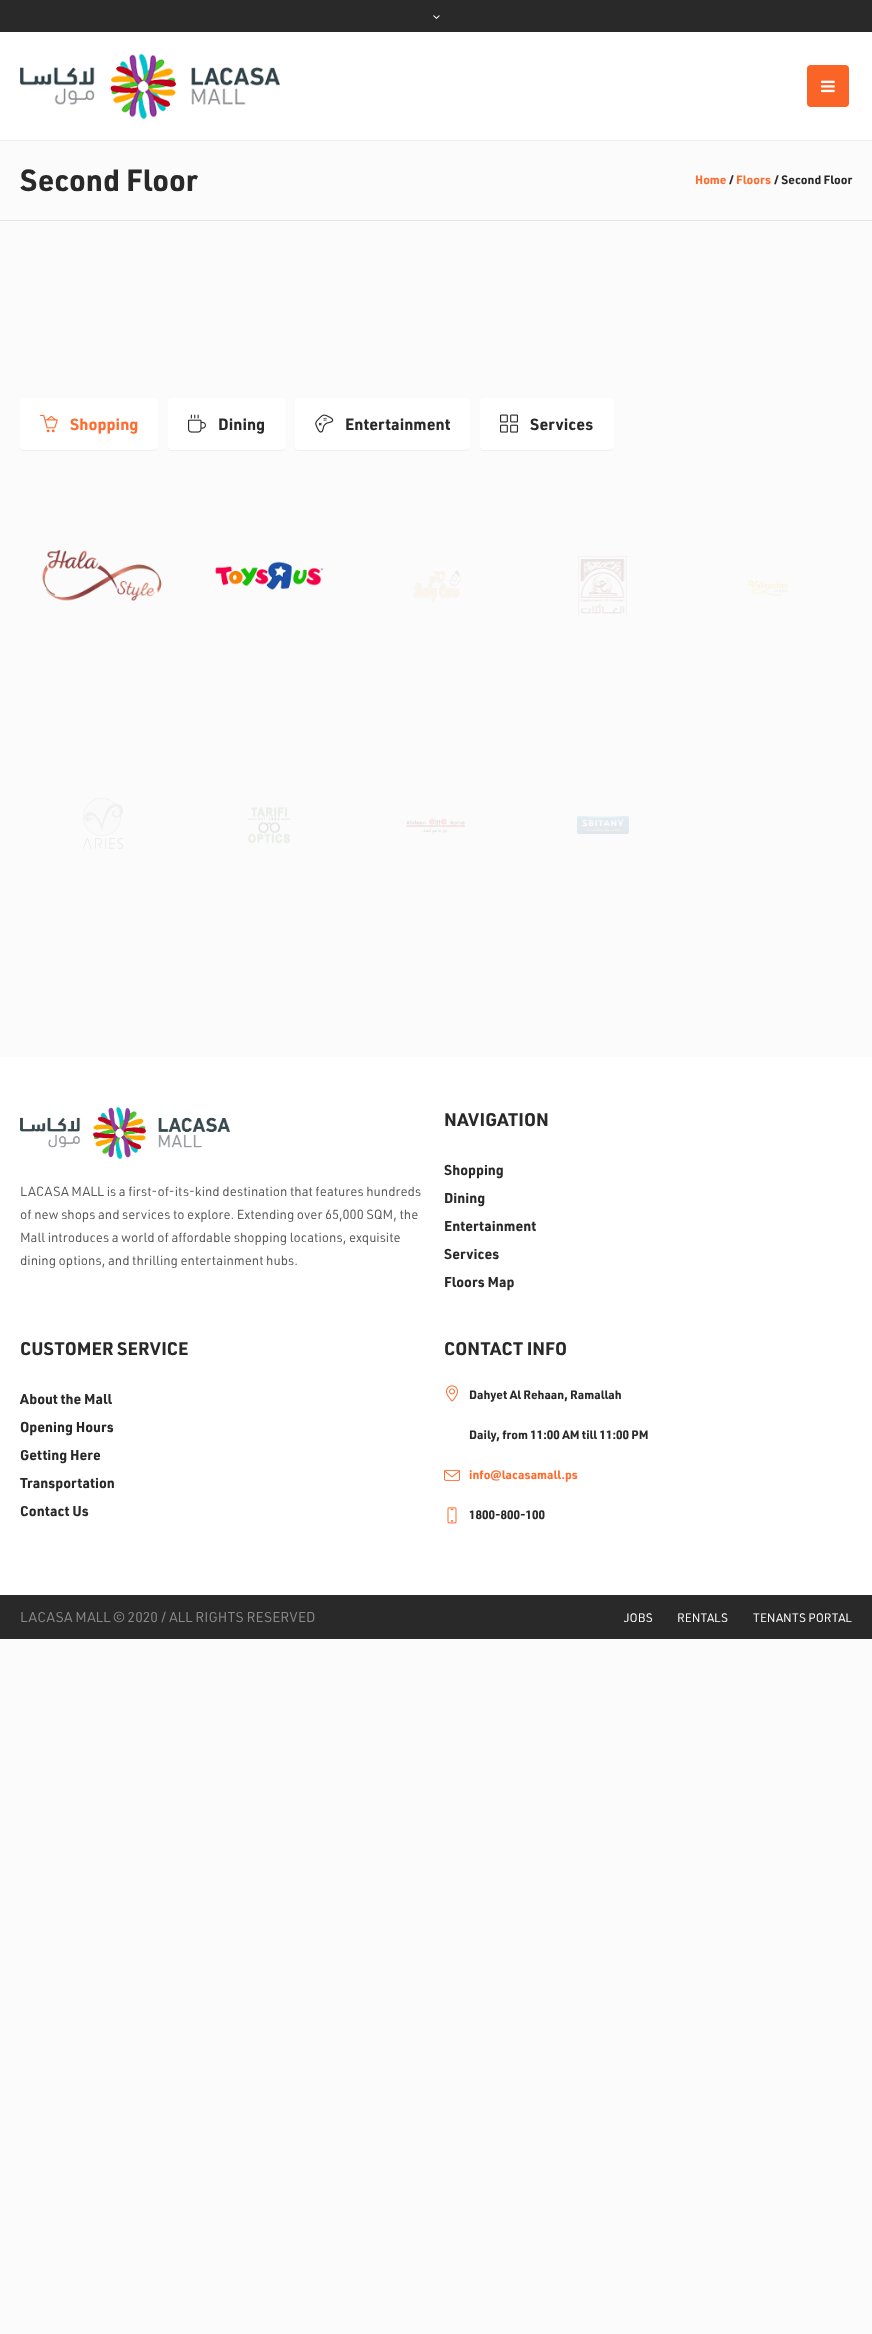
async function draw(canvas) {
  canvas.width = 872
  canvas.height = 2334
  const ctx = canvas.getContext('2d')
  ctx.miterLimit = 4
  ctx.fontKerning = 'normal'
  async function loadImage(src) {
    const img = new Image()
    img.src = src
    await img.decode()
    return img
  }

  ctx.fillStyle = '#fbfbfb'
  ctx.fillRect(0, 0, 872, 2334)
  ctx.fillStyle = '#0000000d'
  ctx.filter = 'blur(0.5px)'
  ctx.beginPath()
  ctx.rect(0, 1, 872, 140)
  ctx.fill()
  ctx.filter = 'none'
  ctx.fillStyle = '#292929'
  ctx.fillRect(0, 0, 872, 32)
  ctx.drawImage(await loadImage('image0.png'), 433, 15, 7, 4)
  ctx.fillStyle = '#fff'
  ctx.fillRect(0, 32, 872, 108)
  ctx.drawImage(await loadImage('image1.png'), 20, 54, 260, 65)
  ctx.fillStyle = '#fa6426'
  ctx.beginPath()
  ctx.roundRect(807, 65, 42, 42, 4)
  ctx.fill()
  ctx.drawImage(await loadImage('image2.png'), 821, 80, 14, 13)
  ctx.fillStyle = '#fefefe'
  ctx.fillRect(0, 221, 872, 1)
  ctx.fillStyle = '#e4e4e4'
  ctx.fillRect(0, 220, 872, 1)
  ctx.font = 'bold 30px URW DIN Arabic'
  ctx.fillStyle = '#292929'
  ctx.fillText('Second Floor', 20, 191)
  ctx.font = 'bold 12px URW DIN Arabic'
  ctx.fillStyle = '#ff6c2f'
  ctx.fillText('Home', 695, 184)
  ctx.fillStyle = '#292929'
  ctx.fillText('/', 729, 184)
  ctx.fillStyle = '#ff6c2f'
  ctx.fillText('Floors', 736, 184)
  ctx.fillStyle = '#292929'
  ctx.fillText('/ Second Floor', 774, 184)
  ctx.fillStyle = '#0000000d'
  ctx.filter = 'blur(0.5px)'
  ctx.beginPath()
  ctx.roundRect(20, 399, 138, 52, 4)
  ctx.fill()
  ctx.filter = 'none'
  ctx.fillStyle = '#fff'
  ctx.beginPath()
  ctx.roundRect(20, 398, 138, 52, 4)
  ctx.fill()
  ctx.drawImage(await loadImage('image3.png'), 40, 414, 18, 19)
  ctx.font = 'bold 16px URW DIN Arabic'
  ctx.fillStyle = '#ff6c2f'
  ctx.fillText('Shopping', 70, 430)
  ctx.fillStyle = '#0000000d'
  ctx.filter = 'blur(0.5px)'
  ctx.beginPath()
  ctx.roundRect(168, 399, 117, 52, 4)
  ctx.fill()
  ctx.filter = 'none'
  ctx.fillStyle = '#fff'
  ctx.beginPath()
  ctx.roundRect(168, 398, 117, 52, 4)
  ctx.fill()
  ctx.drawImage(await loadImage('image4.png'), 188, 414, 18, 19)
  ctx.fillStyle = '#292929'
  ctx.fillText('Dining', 218, 430)
  ctx.fillStyle = '#0000000d'
  ctx.filter = 'blur(0.5px)'
  ctx.beginPath()
  ctx.roundRect(295, 399, 175, 52, 4)
  ctx.fill()
  ctx.filter = 'none'
  ctx.fillStyle = '#fff'
  ctx.beginPath()
  ctx.roundRect(295, 398, 175, 52, 4)
  ctx.fill()
  ctx.drawImage(await loadImage('image5.png'), 315, 414, 19, 19)
  ctx.fillStyle = '#292929'
  ctx.fillText('Entertainment', 345, 430)
  ctx.fillStyle = '#0000000d'
  ctx.filter = 'blur(0.5px)'
  ctx.beginPath()
  ctx.roundRect(480, 399, 134, 52, 4)
  ctx.fill()
  ctx.filter = 'none'
  ctx.fillStyle = '#fff'
  ctx.beginPath()
  ctx.roundRect(480, 398, 134, 52, 4)
  ctx.fill()
  ctx.drawImage(await loadImage('image6.png'), 500, 414, 18, 19)
  ctx.fillStyle = '#292929'
  ctx.fillText('Services', 530, 430)
  ctx.drawImage(await loadImage('image7.png'), 42, 550, 120, 51)
  ctx.drawImage(await loadImage('image8.png'), 215, 561, 109, 29)
  ctx.drawImage(await loadImage('image9.png'), 413, 570, 48, 32)
  ctx.drawImage(await loadImage('image10.png'), 578, 556, 49, 60)
  ctx.drawImage(await loadImage('image11.png'), 748, 580, 40, 16)
  ctx.drawImage(await loadImage('image12.png'), 83, 798, 40, 51)
  ctx.drawImage(await loadImage('image13.png'), 248, 807, 42, 37)
  ctx.drawImage(await loadImage('image14.png'), 406, 818, 59, 15)
  ctx.drawImage(await loadImage('image15.png'), 577, 816, 52, 18)
  ctx.fillStyle = '#fff'
  ctx.fillRect(0, 1057, 872, 538)
  ctx.drawImage(await loadImage('image16.png'), 20, 1107, 210, 52)
  ctx.font = '13px URW DIN Arabic'
  ctx.fillStyle = '#595959'
  ctx.fillText('LACASA MALL is a first-of-its-kind destination that features hundreds', 20, 1196)
  ctx.fillText('of new shops and services to explore. Extending over 65,000 SQM, the', 20, 1219)
  ctx.fillText('Mall introduces a world of affordable shopping locations, exquisite', 20, 1242)
  ctx.fillText('dining options, and thrilling entertainment hubs.', 20, 1265)
  ctx.font = 'bold 18px URW DIN Arabic'
  ctx.fillStyle = '#292929'
  ctx.fillText('NAVIGATION', 444, 1126)
  ctx.font = 'bold 14px URW DIN Arabic'
  ctx.fillText('Shopping', 444, 1175)
  ctx.fillText('Dining', 444, 1203)
  ctx.fillText('Entertainment', 444, 1231)
  ctx.fillText('Services', 444, 1259)
  ctx.fillText('Floors Map', 444, 1287)
  ctx.font = 'bold 18px URW DIN Arabic'
  ctx.fillText('CUSTOMER SERVICE', 20, 1355)
  ctx.font = 'bold 14px URW DIN Arabic'
  ctx.fillText('About the Mall', 20, 1404)
  ctx.fillText('Opening Hours', 20, 1432)
  ctx.fillText('Getting Here', 20, 1460)
  ctx.fillText('Transportation', 20, 1488)
  ctx.fillText('Contact Us', 20, 1516)
  ctx.font = 'bold 18px URW DIN Arabic'
  ctx.fillText('CONTACT INFO', 444, 1355)
  ctx.drawImage(await loadImage('image17.png'), 446, 1385, 12, 17)
  ctx.font = 'bold 12px URW DIN Arabic'
  ctx.fillText('Dahyet Al Rehaan, Ramallah', 469, 1399)
  ctx.fillText('Daily, from 11:00 AM till 11:00 PM', 469, 1439)
  ctx.drawImage(await loadImage('image18.png'), 444, 1469, 16, 12)
  ctx.fillStyle = '#ff6c2f'
  ctx.fillText('info@lacasamall.ps', 469, 1479)
  ctx.drawImage(await loadImage('image19.png'), 447, 1507, 10, 17)
  ctx.fillStyle = '#292929'
  ctx.fillText('1800-800-100', 469, 1519)
  ctx.fillRect(0, 1595, 872, 44)
  ctx.font = '14px URW DIN Arabic'
  ctx.fillStyle = '#898989'
  ctx.fillText('LACASA MALL © 2020 / ALL RIGHTS RESERVED', 20, 1622)
  ctx.font = '12px URW DIN Arabic'
  ctx.fillStyle = '#fff'
  ctx.fillText('JOBS', 624, 1622)
  ctx.fillText('RENTALS', 677, 1622)
  ctx.fillText('TENANTS PORTAL', 753, 1622)
}

draw(document.querySelector('canvas'))
